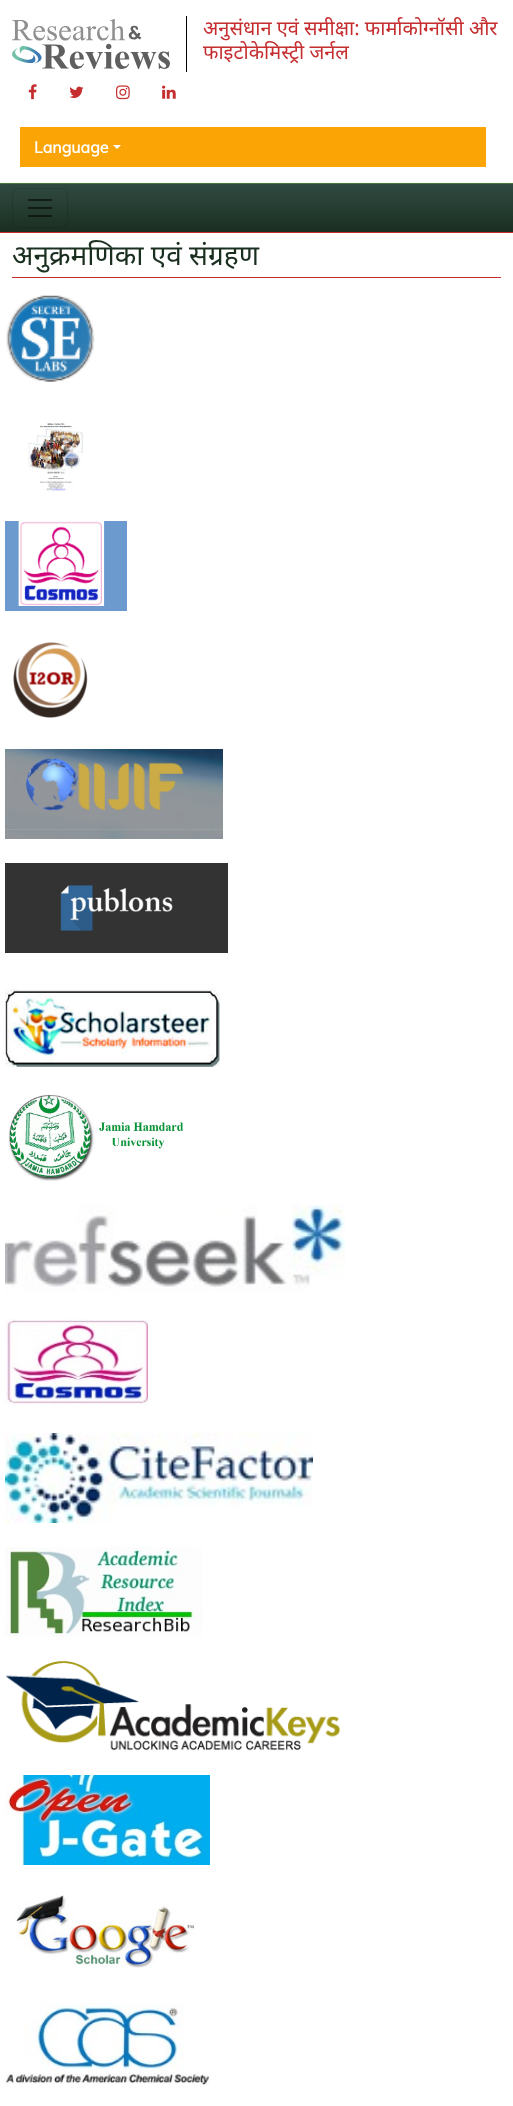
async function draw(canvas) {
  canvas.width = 513
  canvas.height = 2106
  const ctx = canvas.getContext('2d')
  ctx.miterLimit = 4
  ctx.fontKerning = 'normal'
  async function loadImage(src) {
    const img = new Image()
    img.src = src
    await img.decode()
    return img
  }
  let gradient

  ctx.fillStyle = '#fff'
  ctx.fillRect(0, 0, 513, 2106)
  ctx.drawImage(await loadImage('image0.png'), 12, 19, 158, 50)
  ctx.fillStyle = '#000'
  ctx.fillRect(186, 16, 1, 56)
  ctx.font = '20px Noto Sans'
  ctx.fillStyle = '#c52d2f'
  ctx.fillText('अनुसंधान एवं समीक्षा: फार्माकोग्नॉसी और', 203, 35)
  ctx.fillText('फाइटोकेमिस्ट्री जर्नल', 203, 59)
  ctx.drawImage(await loadImage('image1.png'), 28, 84, 9, 16)
  ctx.drawImage(await loadImage('image2.png'), 69, 86, 15, 12)
  ctx.drawImage(await loadImage('image3.png'), 116, 85, 14, 15)
  ctx.drawImage(await loadImage('image4.png'), 162, 85, 14, 14)
  ctx.fillStyle = '#fba405'
  ctx.fillRect(20, 127, 466, 40)
  ctx.font = 'bold 16px Muli'
  ctx.fillStyle = '#fff'
  ctx.fillText('Language', 34, 153)
  ctx.beginPath()
  ctx.moveTo(113, 145)
  ctx.lineTo(121, 145)
  ctx.lineTo(117, 149)
  ctx.closePath()
  ctx.fill()
  gradient = ctx.createLinearGradient(257, 184, 257, 232)
  gradient.addColorStop(0, '#304a42')
  gradient.addColorStop(1, '#1a2f20')
  ctx.fillStyle = gradient
  ctx.fillRect(0, 184, 513, 48)
  ctx.fillStyle = '#467837'
  ctx.fillRect(0, 183, 513, 1)
  ctx.fillStyle = '#c52d2f'
  ctx.fillRect(0, 232, 513, 1)
  ctx.beginPath()
  ctx.roundRect(12.5, 188.5, 55, 39, 5.5)
  ctx.strokeStyle = '#0000001a'
  ctx.stroke()
  ctx.drawImage(await loadImage('image5.png'), 28, 199, 24, 18)
  ctx.fillRect(12, 277, 489, 1)
  ctx.font = '28px Noto Sans'
  ctx.fillStyle = '#1a2f20'
  ctx.fillText('अनुक्रमणिका एवं संग्रहण', 12, 265)
  ctx.drawImage(await loadImage('image6.png'), 6, 295, 89, 87)
  ctx.drawImage(await loadImage('image7.png'), 28, 423, 55, 68)
  ctx.drawImage(await loadImage('image8.png'), 5, 521, 122, 90)
  ctx.drawImage(await loadImage('image9.png'), 13, 642, 75, 76)
  ctx.drawImage(await loadImage('image10.png'), 5, 749, 218, 90)
  ctx.drawImage(await loadImage('image11.png'), 5, 863, 223, 90)
  ctx.drawImage(await loadImage('image12.png'), 5, 988, 215, 79)
  ctx.drawImage(await loadImage('image13.png'), 8, 1094, 176, 87)
  ctx.drawImage(await loadImage('image14.png'), 5, 1205, 340, 87)
  ctx.drawImage(await loadImage('image15.png'), 5, 1319, 143, 86)
  ctx.drawImage(await loadImage('image16.png'), 5, 1433, 308, 90)
  ctx.drawImage(await loadImage('image17.png'), 5, 1547, 198, 90)
  ctx.drawImage(await loadImage('image18.png'), 6, 1661, 335, 90)
  ctx.drawImage(await loadImage('image19.png'), 5, 1775, 205, 90)
  ctx.drawImage(await loadImage('image20.png'), 15, 1895, 180, 73)
  ctx.drawImage(await loadImage('image21.png'), 6, 2003, 204, 82)
}

draw(document.querySelector('canvas'))
